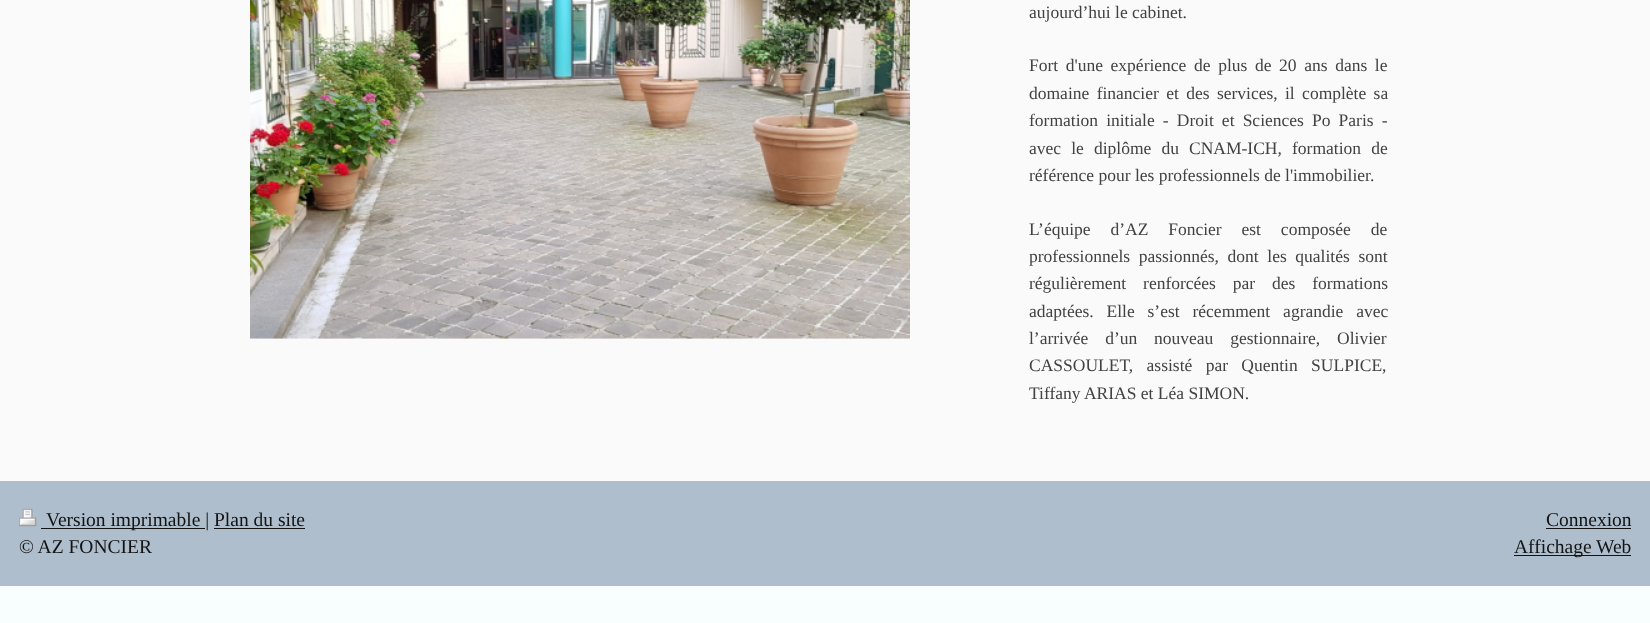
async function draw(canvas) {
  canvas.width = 1650
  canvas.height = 623
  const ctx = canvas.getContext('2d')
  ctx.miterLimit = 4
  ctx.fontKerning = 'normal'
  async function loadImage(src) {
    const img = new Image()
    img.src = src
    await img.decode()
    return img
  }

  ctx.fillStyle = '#f8fdfe'
  ctx.fillRect(0, 0, 1650, 623)
  ctx.fillStyle = '#fafafb'
  ctx.fillRect(0, 0, 1650, 481)
  ctx.drawImage(await loadImage('image0.png'), 250, 0, 660, 339)
  ctx.font = '17.5px Liberation Serif'
  ctx.fillStyle = '#424242'
  ctx.fillText('aujourd’hui le cabinet.', 1029, 18)
  ctx.wordSpacing = '3.25px'
  ctx.fillText('Fort d\'une expérience de plus de 20 ans dans le', 1029, 71)
  ctx.wordSpacing = '3px'
  ctx.fillText('domaine financier et des services, il complète sa', 1029, 99)
  ctx.wordSpacing = '3.75px'
  ctx.fillText('formation initiale - Droit et Sciences Po Paris -', 1029, 126)
  ctx.wordSpacing = '5.75px'
  ctx.fillText('avec le diplôme du CNAM-ICH, formation de', 1029, 154)
  ctx.wordSpacing = '0px'
  ctx.fillText('référence pour les professionnels de l\'immobilier.', 1029, 181)
  ctx.wordSpacing = '15.5px'
  ctx.fillText('L’équipe d’AZ Foncier est composée de', 1029, 235)
  ctx.wordSpacing = '4.25px'
  ctx.fillText('professionnels passionnés, dont les qualités sont', 1029, 262)
  ctx.wordSpacing = '12.5px'
  ctx.fillText('régulièrement renforcées par des formations', 1029, 289)
  ctx.wordSpacing = '8.5px'
  ctx.fillText('adaptées. Elle s’est récemment agrandie avec', 1029, 317)
  ctx.wordSpacing = '12.5px'
  ctx.fillText('l’arrivée d’un nouveau gestionnaire, Olivier', 1029, 344)
  ctx.wordSpacing = '9px'
  ctx.fillText('CASSOULET, assisté par Quentin SULPICE,', 1029, 371)
  ctx.wordSpacing = '0px'
  ctx.fillText('Tiffany ARIAS et Léa SIMON.', 1029, 399)
  ctx.fillStyle = '#afbecc'
  ctx.fillRect(0, 481, 1650, 105)
  ctx.drawImage(await loadImage('image1.png'), 19, 508, 18, 19)
  ctx.fillStyle = '#121314'
  ctx.fillRect(41, 528, 164, 1)
  ctx.font = '19.5px Liberation Serif'
  ctx.fillText('Version imprimable | Plan du site', 46, 526)
  ctx.fillRect(214, 528, 91, 1)
  ctx.fillText('© AZ FONCIER', 19, 553)
  ctx.fillText('Connexion', 1546, 526)
  ctx.fillRect(1546, 528, 85, 1)
  ctx.fillRect(1514, 555, 117, 1)
  ctx.fillText('Affichage Web', 1514, 553)
}

draw(document.querySelector('canvas'))
